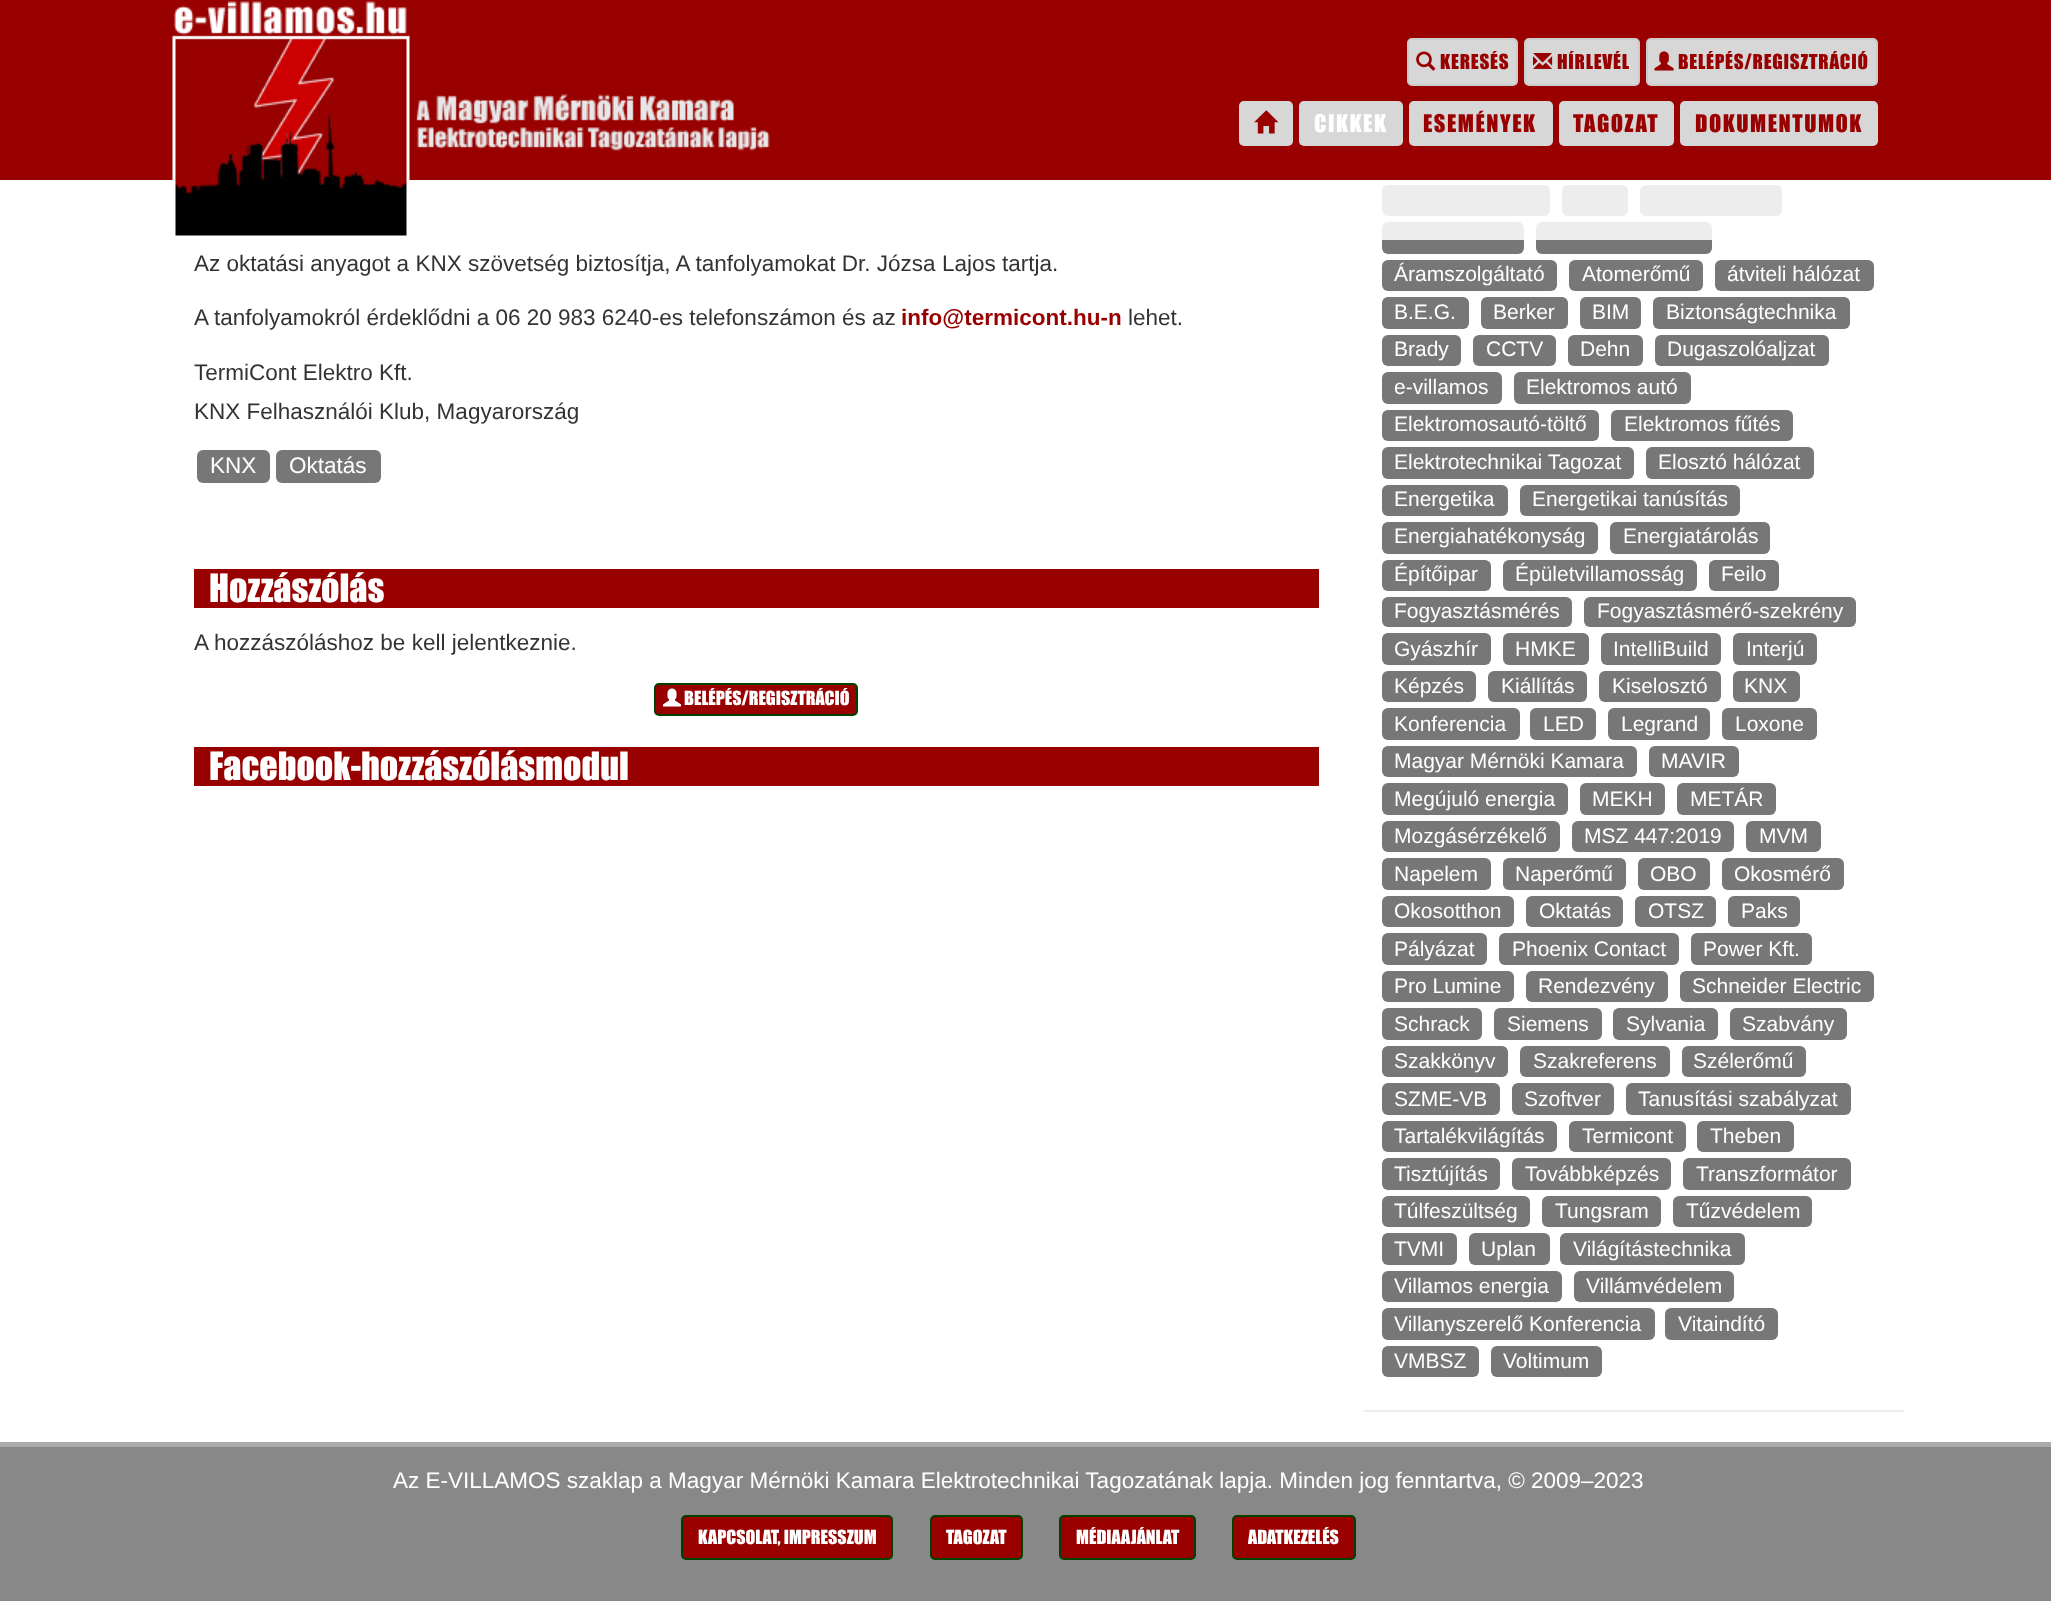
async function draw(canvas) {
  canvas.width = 2051
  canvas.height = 1601
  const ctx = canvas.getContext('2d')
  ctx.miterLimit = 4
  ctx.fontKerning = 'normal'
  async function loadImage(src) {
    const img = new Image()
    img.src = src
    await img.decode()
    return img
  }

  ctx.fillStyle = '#fff'
  ctx.fillRect(0, 0, 2051, 1601)
  ctx.fillStyle = '#777'
  ctx.beginPath()
  ctx.roundRect(1382, 185, 168, 31, 6)
  ctx.fill()
  ctx.beginPath()
  ctx.roundRect(1562, 185, 66, 31, 6)
  ctx.fill()
  ctx.beginPath()
  ctx.roundRect(1640, 185, 142, 31, 6)
  ctx.fill()
  ctx.beginPath()
  ctx.roundRect(1382, 222, 142, 32, 6)
  ctx.fill()
  ctx.beginPath()
  ctx.roundRect(1536, 222, 176, 32, 6)
  ctx.fill()
  ctx.fillStyle = '#ffffffde'
  ctx.fillRect(1382, 185, 400, 55)
  ctx.fillStyle = '#990100'
  ctx.fillRect(0, 0, 2051, 180)
  ctx.drawImage(await loadImage('image0.png'), 172, 1, 598, 235)
  ctx.fillStyle = '#d7d7d7'
  ctx.beginPath()
  ctx.roundRect(1408, 39, 109, 46, 4)
  ctx.fill()
  ctx.strokeStyle = '#ccc'
  ctx.lineWidth = 2
  ctx.stroke()
  ctx.drawImage(await loadImage('image1.png'), 1416, 51, 20, 20)
  ctx.letterSpacing = '0.75px'
  ctx.font = '19.1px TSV'
  ctx.fillStyle = '#990100'
  ctx.fillText('KERESÉS', 1440, 69)
  ctx.fillStyle = '#d7d7d7'
  ctx.beginPath()
  ctx.roundRect(1525, 39, 114, 46, 4)
  ctx.fill()
  ctx.stroke()
  ctx.drawImage(await loadImage('image2.png'), 1533, 53, 20, 16)
  ctx.fillStyle = '#990100'
  ctx.fillText('HÍRLEVÉL', 1557, 69)
  ctx.fillStyle = '#d7d7d7'
  ctx.beginPath()
  ctx.roundRect(1647, 39, 230, 46, 4)
  ctx.fill()
  ctx.stroke()
  ctx.drawImage(await loadImage('image3.png'), 1654, 51, 20, 20)
  ctx.fillStyle = '#990100'
  ctx.fillText('BELÉPÉS/REGISZTRÁCIÓ', 1678, 69)
  ctx.fillStyle = '#d7d7d7'
  ctx.beginPath()
  ctx.roundRect(1239, 101, 54, 45, 5)
  ctx.fill()
  ctx.drawImage(await loadImage('image4.png'), 1254, 110, 25, 24)
  ctx.beginPath()
  ctx.roundRect(1299, 101, 104, 45, 5)
  ctx.fill()
  ctx.letterSpacing = '1.5px'
  ctx.font = '22.5px TSV'
  ctx.fillStyle = '#fff'
  ctx.fillText('CIKKEK', 1314, 132)
  ctx.fillStyle = '#d7d7d7'
  ctx.beginPath()
  ctx.roundRect(1409, 101, 144, 45, 5)
  ctx.fill()
  ctx.fillStyle = '#990100'
  ctx.fillText('ESEMÉNYEK', 1423, 132)
  ctx.fillStyle = '#d7d7d7'
  ctx.beginPath()
  ctx.roundRect(1559, 101, 115, 45, 5)
  ctx.fill()
  ctx.fillStyle = '#990100'
  ctx.fillText('TAGOZAT', 1573, 132)
  ctx.fillStyle = '#d7d7d7'
  ctx.beginPath()
  ctx.roundRect(1680, 101, 198, 45, 5)
  ctx.fill()
  ctx.fillStyle = '#990100'
  ctx.fillText('DOKUMENTUMOK', 1695, 132)
  ctx.letterSpacing = '0px'
  ctx.font = '22.5px Liberation Sans'
  ctx.fillStyle = '#333'
  ctx.fillText('Az oktatási anyagot a KNX szövetség biztosítja, A tanfolyamokat Dr. Józsa Lajos tartja.', 194, 271)
  ctx.fillText('A tanfolyamokról érdeklődni a 06 20 983 6240-es telefonszámon és az', 194, 325)
  ctx.font = 'bold 22.5px Liberation Sans'
  ctx.fillStyle = '#990100'
  ctx.fillText('info@termicont.hu-n', 901, 325)
  ctx.font = '22.5px Liberation Sans'
  ctx.fillStyle = '#333'
  ctx.fillText('lehet.', 1128, 325)
  ctx.fillText('TermiCont Elektro Kft.', 194, 380)
  ctx.fillText('KNX Felhasználói Klub, Magyarország', 194, 419)
  ctx.fillStyle = '#777'
  ctx.beginPath()
  ctx.roundRect(197, 450, 73, 33, 6)
  ctx.fill()
  ctx.fillStyle = '#fff'
  ctx.fillText('KNX', 210, 473)
  ctx.fillStyle = '#777'
  ctx.beginPath()
  ctx.roundRect(276, 450, 105, 33, 6)
  ctx.fill()
  ctx.fillStyle = '#fff'
  ctx.fillText('Oktatás', 289, 473)
  ctx.fillStyle = '#990100'
  ctx.fillRect(194, 569, 1125, 39)
  ctx.font = '36px TSV'
  ctx.fillStyle = '#fff'
  ctx.fillText('Hozzászólás', 209, 602)
  ctx.font = '22.5px Liberation Sans'
  ctx.fillStyle = '#333'
  ctx.fillText('A hozzászóláshoz be kell jelentkeznie.', 194, 650)
  ctx.fillStyle = '#990100'
  ctx.beginPath()
  ctx.roundRect(655, 684, 202, 31, 4)
  ctx.fill()
  ctx.strokeStyle = '#014100'
  ctx.stroke()
  ctx.drawImage(await loadImage('image5.png'), 663, 688, 18, 19)
  ctx.font = '18px TSV'
  ctx.fillStyle = '#fff'
  ctx.fillText('BELÉPÉS/REGISZTRÁCIÓ', 684, 705)
  ctx.fillStyle = '#990100'
  ctx.fillRect(194, 747, 1125, 39)
  ctx.font = '36px TSV'
  ctx.fillStyle = '#fff'
  ctx.fillText('Facebook-hozzászólásmodul', 209, 780)
  ctx.fillStyle = '#777'
  ctx.beginPath()
  ctx.roundRect(1382, 260, 175, 31, 6)
  ctx.fill()
  ctx.font = '21px Liberation Sans'
  ctx.fillStyle = '#fff'
  ctx.fillText('Áramszolgáltató', 1394, 281)
  ctx.fillStyle = '#777'
  ctx.beginPath()
  ctx.roundRect(1569, 260, 134, 31, 6)
  ctx.fill()
  ctx.fillStyle = '#fff'
  ctx.fillText('Atomerőmű', 1582, 281)
  ctx.fillStyle = '#777'
  ctx.beginPath()
  ctx.roundRect(1715, 260, 159, 31, 6)
  ctx.fill()
  ctx.fillStyle = '#fff'
  ctx.fillText('átviteli hálózat', 1727, 281)
  ctx.fillStyle = '#777'
  ctx.beginPath()
  ctx.roundRect(1382, 297, 87, 32, 6)
  ctx.fill()
  ctx.fillStyle = '#fff'
  ctx.fillText('B.E.G.', 1394, 319)
  ctx.fillStyle = '#777'
  ctx.beginPath()
  ctx.roundRect(1481, 297, 87, 32, 6)
  ctx.fill()
  ctx.fillStyle = '#fff'
  ctx.fillText('Berker', 1493, 319)
  ctx.fillStyle = '#777'
  ctx.beginPath()
  ctx.roundRect(1580, 297, 61, 32, 6)
  ctx.fill()
  ctx.fillStyle = '#fff'
  ctx.fillText('BIM', 1592, 319)
  ctx.fillStyle = '#777'
  ctx.beginPath()
  ctx.roundRect(1653, 297, 197, 32, 6)
  ctx.fill()
  ctx.fillStyle = '#fff'
  ctx.fillText('Biztonságtechnika', 1666, 319)
  ctx.fillStyle = '#777'
  ctx.beginPath()
  ctx.roundRect(1382, 335, 79, 31, 6)
  ctx.fill()
  ctx.fillStyle = '#fff'
  ctx.fillText('Brady', 1394, 356)
  ctx.fillStyle = '#777'
  ctx.beginPath()
  ctx.roundRect(1473, 335, 83, 31, 6)
  ctx.fill()
  ctx.fillStyle = '#fff'
  ctx.fillText('CCTV', 1486, 356)
  ctx.fillStyle = '#777'
  ctx.beginPath()
  ctx.roundRect(1568, 335, 75, 31, 6)
  ctx.fill()
  ctx.fillStyle = '#fff'
  ctx.fillText('Dehn', 1580, 356)
  ctx.fillStyle = '#777'
  ctx.beginPath()
  ctx.roundRect(1655, 335, 174, 31, 6)
  ctx.fill()
  ctx.fillStyle = '#fff'
  ctx.fillText('Dugaszolóaljzat', 1667, 356)
  ctx.fillStyle = '#777'
  ctx.beginPath()
  ctx.roundRect(1382, 372, 120, 32, 6)
  ctx.fill()
  ctx.fillStyle = '#fff'
  ctx.fillText('e-villamos', 1394, 394)
  ctx.fillStyle = '#777'
  ctx.beginPath()
  ctx.roundRect(1514, 372, 177, 32, 6)
  ctx.fill()
  ctx.fillStyle = '#fff'
  ctx.fillText('Elektromos autó', 1526, 394)
  ctx.fillStyle = '#777'
  ctx.beginPath()
  ctx.roundRect(1382, 410, 217, 31, 6)
  ctx.fill()
  ctx.fillStyle = '#fff'
  ctx.fillText('Elektromosautó-töltő', 1394, 431)
  ctx.fillStyle = '#777'
  ctx.beginPath()
  ctx.roundRect(1611, 410, 182, 31, 6)
  ctx.fill()
  ctx.fillStyle = '#fff'
  ctx.fillText('Elektromos fűtés', 1624, 431)
  ctx.fillStyle = '#777'
  ctx.beginPath()
  ctx.roundRect(1382, 447, 252, 32, 6)
  ctx.fill()
  ctx.fillStyle = '#fff'
  ctx.fillText('Elektrotechnikai Tagozat', 1394, 469)
  ctx.fillStyle = '#777'
  ctx.beginPath()
  ctx.roundRect(1646, 447, 168, 32, 6)
  ctx.fill()
  ctx.fillStyle = '#fff'
  ctx.fillText('Elosztó hálózat', 1658, 469)
  ctx.fillStyle = '#777'
  ctx.beginPath()
  ctx.roundRect(1382, 485, 126, 31, 6)
  ctx.fill()
  ctx.fillStyle = '#fff'
  ctx.fillText('Energetika', 1394, 506)
  ctx.fillStyle = '#777'
  ctx.beginPath()
  ctx.roundRect(1520, 485, 220, 31, 6)
  ctx.fill()
  ctx.fillStyle = '#fff'
  ctx.fillText('Energetikai tanúsítás', 1532, 506)
  ctx.fillStyle = '#777'
  ctx.beginPath()
  ctx.roundRect(1382, 522, 216, 32, 6)
  ctx.fill()
  ctx.fillStyle = '#fff'
  ctx.fillText('Energiahatékonyság', 1394, 543)
  ctx.fillStyle = '#777'
  ctx.beginPath()
  ctx.roundRect(1610, 522, 160, 32, 6)
  ctx.fill()
  ctx.fillStyle = '#fff'
  ctx.fillText('Energiatárolás', 1623, 543)
  ctx.fillStyle = '#777'
  ctx.beginPath()
  ctx.roundRect(1382, 560, 109, 31, 6)
  ctx.fill()
  ctx.fillStyle = '#fff'
  ctx.fillText('Építőipar', 1394, 581)
  ctx.fillStyle = '#777'
  ctx.beginPath()
  ctx.roundRect(1503, 560, 194, 31, 6)
  ctx.fill()
  ctx.fillStyle = '#fff'
  ctx.fillText('Épületvillamosság', 1515, 581)
  ctx.fillStyle = '#777'
  ctx.beginPath()
  ctx.roundRect(1709, 560, 70, 31, 6)
  ctx.fill()
  ctx.fillStyle = '#fff'
  ctx.fillText('Feilo', 1721, 581)
  ctx.fillStyle = '#777'
  ctx.beginPath()
  ctx.roundRect(1382, 597, 190, 30, 6)
  ctx.fill()
  ctx.fillStyle = '#fff'
  ctx.fillText('Fogyasztásmérés', 1394, 618)
  ctx.fillStyle = '#777'
  ctx.beginPath()
  ctx.roundRect(1584, 597, 272, 30, 6)
  ctx.fill()
  ctx.fillStyle = '#fff'
  ctx.fillText('Fogyasztásmérő-szekrény', 1597, 618)
  ctx.fillStyle = '#777'
  ctx.beginPath()
  ctx.roundRect(1382, 633, 109, 32, 6)
  ctx.fill()
  ctx.fillStyle = '#fff'
  ctx.fillText('Gyászhír', 1394, 656)
  ctx.fillStyle = '#777'
  ctx.beginPath()
  ctx.roundRect(1503, 633, 86, 32, 6)
  ctx.fill()
  ctx.fillStyle = '#fff'
  ctx.fillText('HMKE', 1515, 656)
  ctx.fillStyle = '#777'
  ctx.beginPath()
  ctx.roundRect(1601, 633, 120, 32, 6)
  ctx.fill()
  ctx.fillStyle = '#fff'
  ctx.fillText('IntelliBuild', 1613, 656)
  ctx.fillStyle = '#777'
  ctx.beginPath()
  ctx.roundRect(1733, 633, 84, 32, 6)
  ctx.fill()
  ctx.fillStyle = '#fff'
  ctx.fillText('Interjú', 1746, 656)
  ctx.fillStyle = '#777'
  ctx.beginPath()
  ctx.roundRect(1382, 671, 94, 31, 6)
  ctx.fill()
  ctx.fillStyle = '#fff'
  ctx.fillText('Képzés', 1394, 693)
  ctx.fillStyle = '#777'
  ctx.beginPath()
  ctx.roundRect(1488, 671, 99, 31, 6)
  ctx.fill()
  ctx.fillStyle = '#fff'
  ctx.fillText('Kiállítás', 1501, 693)
  ctx.fillStyle = '#777'
  ctx.beginPath()
  ctx.roundRect(1599, 671, 122, 31, 6)
  ctx.fill()
  ctx.fillStyle = '#fff'
  ctx.fillText('Kiselosztó', 1612, 693)
  ctx.fillStyle = '#777'
  ctx.beginPath()
  ctx.roundRect(1733, 671, 67, 31, 6)
  ctx.fill()
  ctx.fillStyle = '#fff'
  ctx.fillText('KNX', 1744, 693)
  ctx.fillStyle = '#777'
  ctx.beginPath()
  ctx.roundRect(1382, 708, 138, 32, 6)
  ctx.fill()
  ctx.fillStyle = '#fff'
  ctx.fillText('Konferencia', 1394, 731)
  ctx.fillStyle = '#777'
  ctx.beginPath()
  ctx.roundRect(1530, 708, 66, 32, 6)
  ctx.fill()
  ctx.fillStyle = '#fff'
  ctx.fillText('LED', 1543, 731)
  ctx.fillStyle = '#777'
  ctx.beginPath()
  ctx.roundRect(1608, 708, 102, 32, 6)
  ctx.fill()
  ctx.fillStyle = '#fff'
  ctx.fillText('Legrand', 1621, 731)
  ctx.fillStyle = '#777'
  ctx.beginPath()
  ctx.roundRect(1722, 708, 95, 32, 6)
  ctx.fill()
  ctx.fillStyle = '#fff'
  ctx.fillText('Loxone', 1735, 731)
  ctx.fillStyle = '#777'
  ctx.beginPath()
  ctx.roundRect(1382, 746, 255, 31, 6)
  ctx.fill()
  ctx.fillStyle = '#fff'
  ctx.fillText('Magyar Mérnöki Kamara', 1394, 768)
  ctx.fillStyle = '#777'
  ctx.beginPath()
  ctx.roundRect(1649, 746, 90, 31, 6)
  ctx.fill()
  ctx.fillStyle = '#fff'
  ctx.fillText('MAVIR', 1661, 768)
  ctx.fillStyle = '#777'
  ctx.beginPath()
  ctx.roundRect(1382, 783, 186, 32, 6)
  ctx.fill()
  ctx.fillStyle = '#fff'
  ctx.fillText('Megújuló energia', 1394, 806)
  ctx.fillStyle = '#777'
  ctx.beginPath()
  ctx.roundRect(1580, 783, 85, 32, 6)
  ctx.fill()
  ctx.fillStyle = '#fff'
  ctx.fillText('MEKH', 1592, 806)
  ctx.fillStyle = '#777'
  ctx.beginPath()
  ctx.roundRect(1677, 783, 99, 32, 6)
  ctx.fill()
  ctx.fillStyle = '#fff'
  ctx.fillText('METÁR', 1690, 806)
  ctx.fillStyle = '#777'
  ctx.beginPath()
  ctx.roundRect(1382, 821, 178, 31, 6)
  ctx.fill()
  ctx.fillStyle = '#fff'
  ctx.fillText('Mozgásérzékelő', 1394, 843)
  ctx.fillStyle = '#777'
  ctx.beginPath()
  ctx.roundRect(1572, 821, 162, 31, 6)
  ctx.fill()
  ctx.fillStyle = '#fff'
  ctx.fillText('MSZ 447:2019', 1584, 843)
  ctx.fillStyle = '#777'
  ctx.beginPath()
  ctx.roundRect(1746, 821, 75, 31, 6)
  ctx.fill()
  ctx.fillStyle = '#fff'
  ctx.fillText('MVM', 1759, 843)
  ctx.fillStyle = '#777'
  ctx.beginPath()
  ctx.roundRect(1382, 858, 109, 32, 6)
  ctx.fill()
  ctx.fillStyle = '#fff'
  ctx.fillText('Napelem', 1394, 881)
  ctx.fillStyle = '#777'
  ctx.beginPath()
  ctx.roundRect(1503, 858, 123, 32, 6)
  ctx.fill()
  ctx.fillStyle = '#fff'
  ctx.fillText('Naperőmű', 1515, 881)
  ctx.fillStyle = '#777'
  ctx.beginPath()
  ctx.roundRect(1638, 858, 72, 32, 6)
  ctx.fill()
  ctx.fillStyle = '#fff'
  ctx.fillText('OBO', 1650, 881)
  ctx.fillStyle = '#777'
  ctx.beginPath()
  ctx.roundRect(1722, 858, 122, 32, 6)
  ctx.fill()
  ctx.fillStyle = '#fff'
  ctx.fillText('Okosmérő', 1734, 881)
  ctx.fillStyle = '#777'
  ctx.beginPath()
  ctx.roundRect(1382, 896, 132, 31, 6)
  ctx.fill()
  ctx.fillStyle = '#fff'
  ctx.fillText('Okosotthon', 1394, 918)
  ctx.fillStyle = '#777'
  ctx.beginPath()
  ctx.roundRect(1526, 896, 97, 31, 6)
  ctx.fill()
  ctx.fillStyle = '#fff'
  ctx.fillText('Oktatás', 1539, 918)
  ctx.fillStyle = '#777'
  ctx.beginPath()
  ctx.roundRect(1635, 896, 81, 31, 6)
  ctx.fill()
  ctx.fillStyle = '#fff'
  ctx.fillText('OTSZ', 1648, 918)
  ctx.fillStyle = '#777'
  ctx.beginPath()
  ctx.roundRect(1728, 896, 72, 31, 6)
  ctx.fill()
  ctx.fillStyle = '#fff'
  ctx.fillText('Paks', 1741, 918)
  ctx.fillStyle = '#777'
  ctx.beginPath()
  ctx.roundRect(1382, 933, 105, 32, 6)
  ctx.fill()
  ctx.fillStyle = '#fff'
  ctx.fillText('Pályázat', 1394, 956)
  ctx.fillStyle = '#777'
  ctx.beginPath()
  ctx.roundRect(1499, 933, 180, 32, 6)
  ctx.fill()
  ctx.fillStyle = '#fff'
  ctx.fillText('Phoenix Contact', 1512, 956)
  ctx.fillStyle = '#777'
  ctx.beginPath()
  ctx.roundRect(1691, 933, 121, 32, 6)
  ctx.fill()
  ctx.fillStyle = '#fff'
  ctx.fillText('Power Kft.', 1703, 956)
  ctx.fillStyle = '#777'
  ctx.beginPath()
  ctx.roundRect(1382, 971, 132, 31, 6)
  ctx.fill()
  ctx.fillStyle = '#fff'
  ctx.fillText('Pro Lumine', 1394, 993)
  ctx.fillStyle = '#777'
  ctx.beginPath()
  ctx.roundRect(1526, 971, 142, 31, 6)
  ctx.fill()
  ctx.fillStyle = '#fff'
  ctx.fillText('Rendezvény', 1538, 993)
  ctx.fillStyle = '#777'
  ctx.beginPath()
  ctx.roundRect(1680, 971, 194, 31, 6)
  ctx.fill()
  ctx.fillStyle = '#fff'
  ctx.fillText('Schneider Electric', 1692, 993)
  ctx.fillStyle = '#777'
  ctx.beginPath()
  ctx.roundRect(1382, 1008, 100, 32, 6)
  ctx.fill()
  ctx.fillStyle = '#fff'
  ctx.fillText('Schrack', 1394, 1031)
  ctx.fillStyle = '#777'
  ctx.beginPath()
  ctx.roundRect(1494, 1008, 108, 32, 6)
  ctx.fill()
  ctx.fillStyle = '#fff'
  ctx.fillText('Siemens', 1507, 1031)
  ctx.fillStyle = '#777'
  ctx.beginPath()
  ctx.roundRect(1613, 1008, 105, 32, 6)
  ctx.fill()
  ctx.fillStyle = '#fff'
  ctx.fillText('Sylvania', 1626, 1031)
  ctx.fillStyle = '#777'
  ctx.beginPath()
  ctx.roundRect(1730, 1008, 117, 32, 6)
  ctx.fill()
  ctx.fillStyle = '#fff'
  ctx.fillText('Szabvány', 1742, 1031)
  ctx.fillStyle = '#777'
  ctx.beginPath()
  ctx.roundRect(1382, 1046, 126, 31, 6)
  ctx.fill()
  ctx.fillStyle = '#fff'
  ctx.fillText('Szakkönyv', 1394, 1068)
  ctx.fillStyle = '#777'
  ctx.beginPath()
  ctx.roundRect(1520, 1046, 150, 31, 6)
  ctx.fill()
  ctx.fillStyle = '#fff'
  ctx.fillText('Szakreferens', 1533, 1068)
  ctx.fillStyle = '#777'
  ctx.beginPath()
  ctx.roundRect(1682, 1046, 124, 31, 6)
  ctx.fill()
  ctx.fillStyle = '#fff'
  ctx.fillText('Szélerőmű', 1693, 1068)
  ctx.fillStyle = '#777'
  ctx.beginPath()
  ctx.roundRect(1382, 1083, 118, 32, 6)
  ctx.fill()
  ctx.fillStyle = '#fff'
  ctx.fillText('SZME-VB', 1394, 1106)
  ctx.fillStyle = '#777'
  ctx.beginPath()
  ctx.roundRect(1512, 1083, 102, 32, 6)
  ctx.fill()
  ctx.fillStyle = '#fff'
  ctx.fillText('Szoftver', 1524, 1106)
  ctx.fillStyle = '#777'
  ctx.beginPath()
  ctx.roundRect(1626, 1083, 225, 32, 6)
  ctx.fill()
  ctx.fillStyle = '#fff'
  ctx.fillText('Tanusítási szabályzat', 1638, 1106)
  ctx.fillStyle = '#777'
  ctx.beginPath()
  ctx.roundRect(1382, 1121, 175, 31, 6)
  ctx.fill()
  ctx.fillStyle = '#fff'
  ctx.fillText('Tartalékvilágítás', 1394, 1143)
  ctx.fillStyle = '#777'
  ctx.beginPath()
  ctx.roundRect(1569, 1121, 117, 31, 6)
  ctx.fill()
  ctx.fillStyle = '#fff'
  ctx.fillText('Termicont', 1582, 1143)
  ctx.fillStyle = '#777'
  ctx.beginPath()
  ctx.roundRect(1697, 1121, 97, 31, 6)
  ctx.fill()
  ctx.fillStyle = '#fff'
  ctx.fillText('Theben', 1710, 1143)
  ctx.fillStyle = '#777'
  ctx.beginPath()
  ctx.roundRect(1382, 1158, 118, 32, 6)
  ctx.fill()
  ctx.fillStyle = '#fff'
  ctx.fillText('Tisztújítás', 1394, 1181)
  ctx.fillStyle = '#777'
  ctx.beginPath()
  ctx.roundRect(1512, 1158, 159, 32, 6)
  ctx.fill()
  ctx.fillStyle = '#fff'
  ctx.fillText('Továbbképzés', 1525, 1181)
  ctx.fillStyle = '#777'
  ctx.beginPath()
  ctx.roundRect(1683, 1158, 168, 32, 6)
  ctx.fill()
  ctx.fillStyle = '#fff'
  ctx.fillText('Transzformátor', 1696, 1181)
  ctx.fillStyle = '#777'
  ctx.beginPath()
  ctx.roundRect(1382, 1196, 148, 31, 6)
  ctx.fill()
  ctx.fillStyle = '#fff'
  ctx.fillText('Túlfeszültség', 1394, 1218)
  ctx.fillStyle = '#777'
  ctx.beginPath()
  ctx.roundRect(1542, 1196, 119, 31, 6)
  ctx.fill()
  ctx.fillStyle = '#fff'
  ctx.fillText('Tungsram', 1555, 1218)
  ctx.fillStyle = '#777'
  ctx.beginPath()
  ctx.roundRect(1673, 1196, 139, 31, 6)
  ctx.fill()
  ctx.fillStyle = '#fff'
  ctx.fillText('Tűzvédelem', 1686, 1218)
  ctx.fillStyle = '#777'
  ctx.beginPath()
  ctx.roundRect(1382, 1233, 75, 32, 6)
  ctx.fill()
  ctx.fillStyle = '#fff'
  ctx.fillText('TVMI', 1394, 1256)
  ctx.fillStyle = '#777'
  ctx.beginPath()
  ctx.roundRect(1469, 1233, 81, 32, 6)
  ctx.fill()
  ctx.fillStyle = '#fff'
  ctx.fillText('Uplan', 1481, 1256)
  ctx.fillStyle = '#777'
  ctx.beginPath()
  ctx.roundRect(1560, 1233, 185, 32, 6)
  ctx.fill()
  ctx.fillStyle = '#fff'
  ctx.fillText('Világítástechnika', 1573, 1256)
  ctx.fillStyle = '#777'
  ctx.beginPath()
  ctx.roundRect(1382, 1271, 180, 31, 6)
  ctx.fill()
  ctx.fillStyle = '#fff'
  ctx.fillText('Villamos energia', 1394, 1293)
  ctx.fillStyle = '#777'
  ctx.beginPath()
  ctx.roundRect(1574, 1271, 160, 31, 6)
  ctx.fill()
  ctx.fillStyle = '#fff'
  ctx.fillText('Villámvédelem', 1586, 1293)
  ctx.fillStyle = '#777'
  ctx.beginPath()
  ctx.roundRect(1382, 1308, 273, 32, 6)
  ctx.fill()
  ctx.fillStyle = '#fff'
  ctx.fillText('Villanyszerelő Konferencia', 1394, 1331)
  ctx.fillStyle = '#777'
  ctx.beginPath()
  ctx.roundRect(1665, 1308, 113, 32, 6)
  ctx.fill()
  ctx.fillStyle = '#fff'
  ctx.fillText('Vitaindító', 1678, 1331)
  ctx.fillStyle = '#777'
  ctx.beginPath()
  ctx.roundRect(1382, 1346, 97, 31, 6)
  ctx.fill()
  ctx.fillStyle = '#fff'
  ctx.fillText('VMBSZ', 1394, 1368)
  ctx.fillStyle = '#777'
  ctx.beginPath()
  ctx.roundRect(1491, 1346, 111, 31, 6)
  ctx.fill()
  ctx.fillStyle = '#fff'
  ctx.fillText('Voltimum', 1503, 1368)
  ctx.fillStyle = '#eee'
  ctx.fillRect(1364, 1410, 540, 2)
  ctx.fillStyle = '#888'
  ctx.fillRect(0, 1447, 2051, 154)
  ctx.fillStyle = '#aaa'
  ctx.fillRect(0, 1442, 2051, 5)
  ctx.font = '22.5px Liberation Sans'
  ctx.fillStyle = '#fff'
  ctx.fillText('Az E-VILLAMOS szaklap a Magyar Mérnöki Kamara Elektrotechnikai Tagozatának lapja. Minden jog fenntartva, © 2009–2023', 393, 1488)
  ctx.fillStyle = '#990100'
  ctx.beginPath()
  ctx.roundRect(682, 1516, 210, 43, 4)
  ctx.fill()
  ctx.stroke()
  ctx.font = '18px TSV'
  ctx.fillStyle = '#fff'
  ctx.fillText('KAPCSOLAT, IMPRESSZUM', 698, 1544)
  ctx.fillStyle = '#990100'
  ctx.beginPath()
  ctx.roundRect(931, 1516, 91, 43, 4)
  ctx.fill()
  ctx.stroke()
  ctx.fillStyle = '#fff'
  ctx.fillText('TAGOZAT', 946, 1544)
  ctx.fillStyle = '#990100'
  ctx.beginPath()
  ctx.roundRect(1060, 1516, 135, 43, 4)
  ctx.fill()
  ctx.stroke()
  ctx.fillStyle = '#fff'
  ctx.fillText('MÉDIAAJÁNLAT', 1076, 1544)
  ctx.fillStyle = '#990100'
  ctx.beginPath()
  ctx.roundRect(1233, 1516, 122, 43, 4)
  ctx.fill()
  ctx.stroke()
  ctx.fillStyle = '#fff'
  ctx.fillText('ADATKEZELÉS', 1248, 1544)
}

draw(document.querySelector('canvas'))
